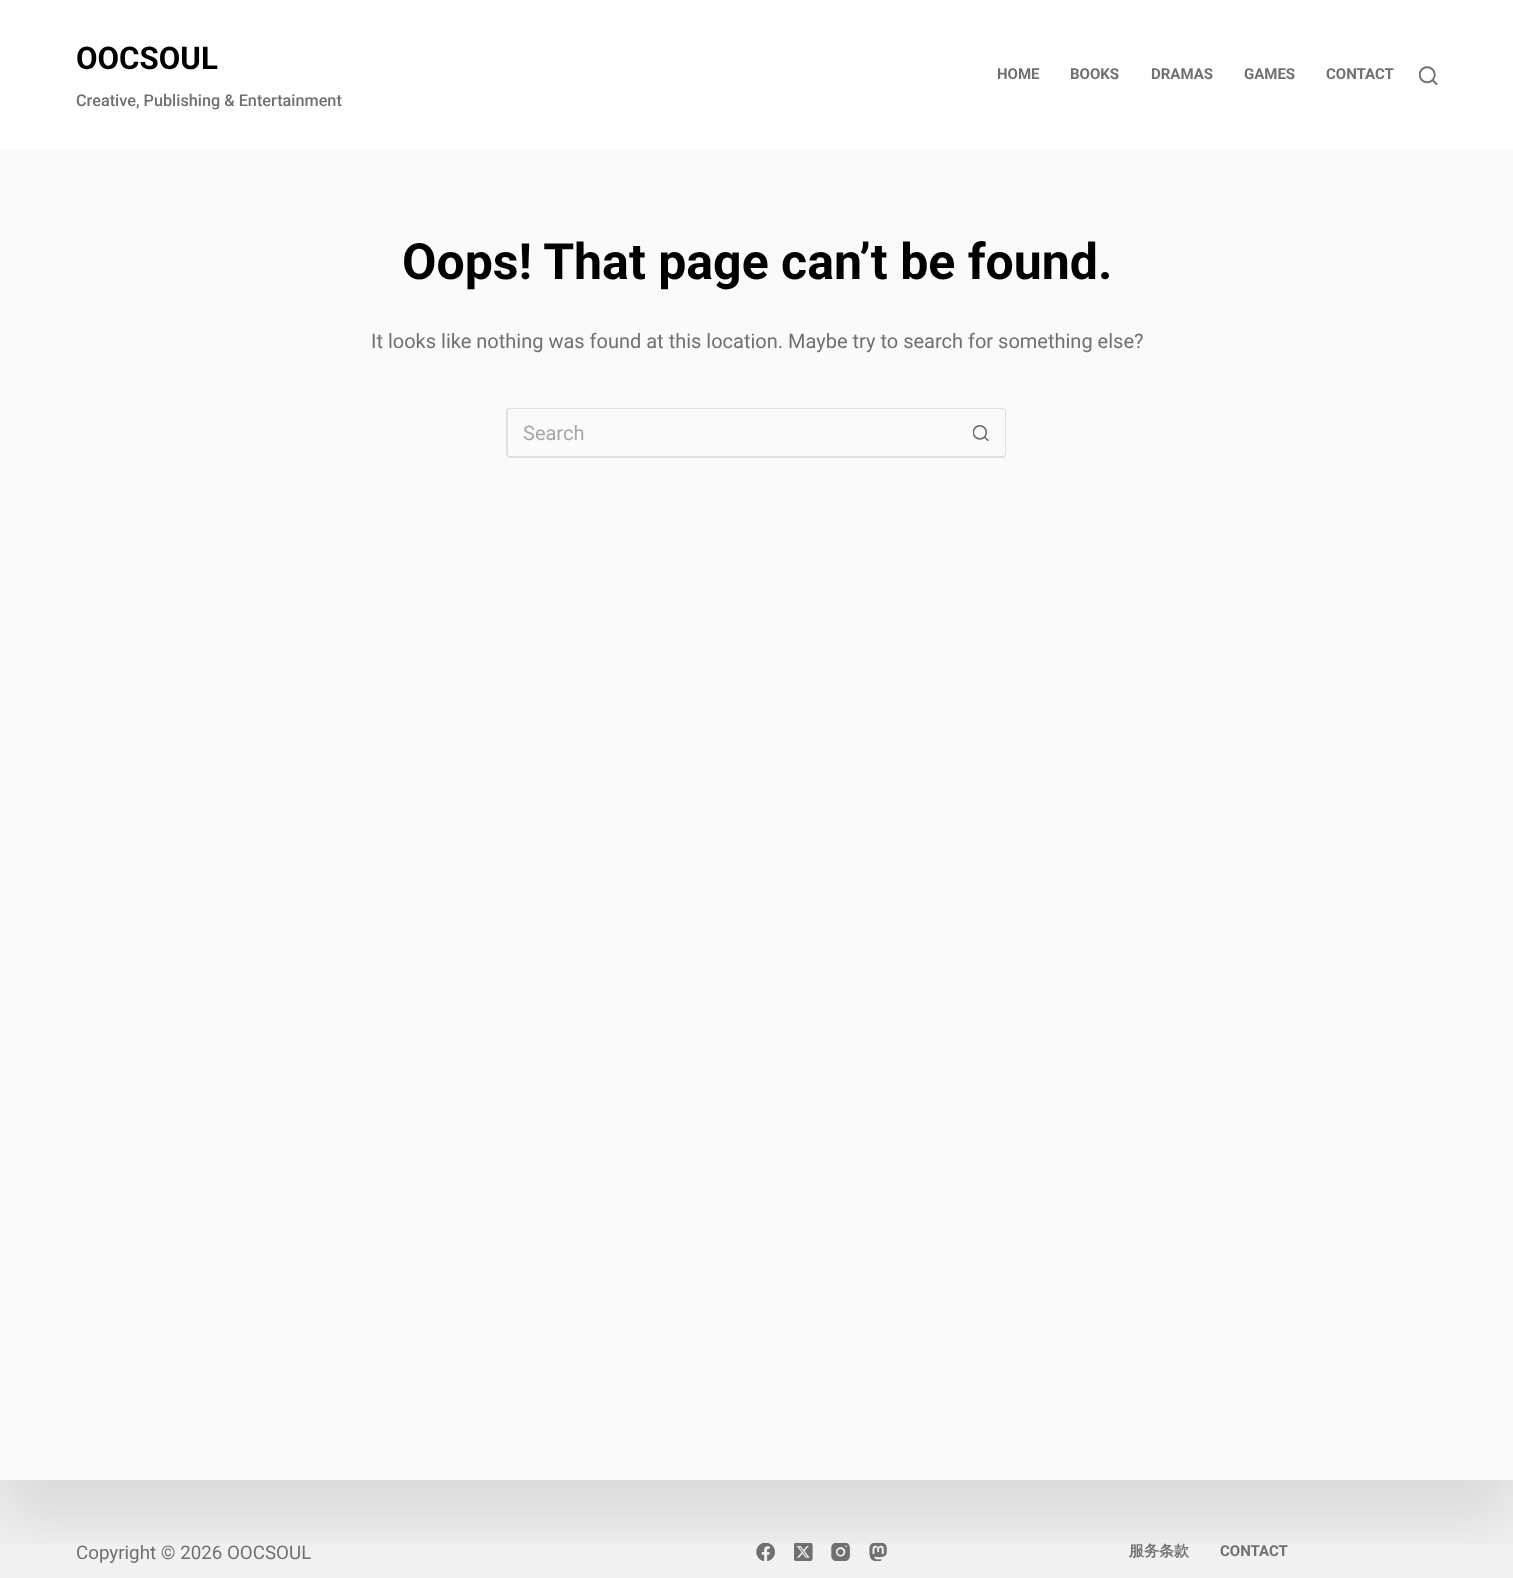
async function draw(canvas) {
  canvas.width = 1513
  canvas.height = 1578
  const ctx = canvas.getContext('2d')
  ctx.miterLimit = 4
  ctx.fontKerning = 'normal'
  async function loadImage(src) {
    const img = new Image()
    img.src = src
    await img.decode()
    return img
  }

  ctx.fillStyle = '#fafafa'
  ctx.fillRect(0, 0, 1513, 1578)
  ctx.fillStyle = '#f1f1f1'
  ctx.fillRect(0, 1480, 1513, 98)
  ctx.drawImage(await loadImage('image2.png'), 756, 1543, 19, 18)
  ctx.drawImage(await loadImage('image3.png'), 794, 1543, 19, 18)
  ctx.drawImage(await loadImage('image4.png'), 831, 1543, 19, 18)
  ctx.drawImage(await loadImage('image5.png'), 869, 1543, 18, 18)
  ctx.save()
  ctx.beginPath()
  ctx.rect(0, 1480, 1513, 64)
  ctx.clip()
  ctx.fillStyle = '#0000001a'
  ctx.filter = 'blur(31px)'
  ctx.beginPath()
  ctx.rect(0, 188, 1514, 1330)
  ctx.fill()
  ctx.filter = 'none'
  ctx.restore()
  ctx.fillStyle = '#fff'
  ctx.fillRect(0, 0, 1513, 150)
  ctx.font = 'bold 31.25px Roboto'
  ctx.fillStyle = '#000'
  ctx.fillText('OOCSOUL', 76, 69)
  ctx.font = '500 16.25px Roboto'
  ctx.fillStyle = '#707070'
  ctx.fillText('Creative, Publishing & Entertainment', 76, 106)
  ctx.font = 'bold 15px Roboto'
  ctx.fillText('HOME', 997, 79)
  ctx.fillText('BOOKS', 1070, 79)
  ctx.fillText('DRAMAS', 1151, 79)
  ctx.fillText('GAMES', 1244, 79)
  ctx.fillText('CONTACT', 1326, 79)
  ctx.drawImage(await loadImage('image0.png'), 1419, 66, 19, 19)
  ctx.font = 'bold 50px Roboto'
  ctx.fillStyle = '#000'
  ctx.fillText('Oops! That page can’t be found.', 402, 279)
  ctx.font = '20px Roboto'
  ctx.fillStyle = '#707070'
  ctx.fillText('It looks like nothing was found at this location. Maybe try to search for something else?', 371, 348)
  ctx.fillStyle = '#e0e0e0'
  ctx.beginPath()
  ctx.moveTo(510, 408)
  ctx.lineTo(956, 408)
  ctx.lineTo(956, 458)
  ctx.lineTo(510, 458)
  ctx.bezierCurveTo(508, 458, 506, 456, 506, 454)
  ctx.lineTo(506, 411)
  ctx.bezierCurveTo(506, 409, 508, 408, 510, 408)
  ctx.closePath()
  ctx.moveTo(510, 409)
  ctx.lineTo(956, 409)
  ctx.lineTo(956, 456)
  ctx.lineTo(510, 456)
  ctx.bezierCurveTo(509, 456, 508, 455, 508, 454)
  ctx.lineTo(508, 411)
  ctx.bezierCurveTo(508, 410, 509, 409, 510, 409)
  ctx.closePath()
  ctx.fill('evenodd')
  ctx.fillStyle = '#a7a7a7'
  ctx.fillText('Search', 523, 440)
  ctx.fillStyle = '#e0e0e0'
  ctx.beginPath()
  ctx.moveTo(956, 408)
  ctx.lineTo(1002, 408)
  ctx.bezierCurveTo(1005, 408, 1006, 409, 1006, 411)
  ctx.lineTo(1006, 454)
  ctx.bezierCurveTo(1006, 456, 1005, 458, 1002, 458)
  ctx.lineTo(956, 458)
  ctx.closePath()
  ctx.moveTo(956, 409)
  ctx.lineTo(1002, 409)
  ctx.bezierCurveTo(1004, 409, 1005, 410, 1005, 411)
  ctx.lineTo(1005, 454)
  ctx.bezierCurveTo(1005, 455, 1004, 456, 1002, 456)
  ctx.lineTo(956, 456)
  ctx.closePath()
  ctx.fill('evenodd')
  ctx.drawImage(await loadImage('image1.png'), 973, 425, 16, 16)
  ctx.font = '18.75px Roboto'
  ctx.fillStyle = '#707070'
  ctx.fillText('Copyright © 2026 OOCSOUL', 76, 1559)
  ctx.font = 'bold 15px WenQuanYi Zen Hei'
  ctx.fillText('服务条款', 1129, 1556)
  ctx.font = 'bold 15px Roboto'
  ctx.fillText('CONTACT', 1220, 1556)
}

draw(document.querySelector('canvas'))
